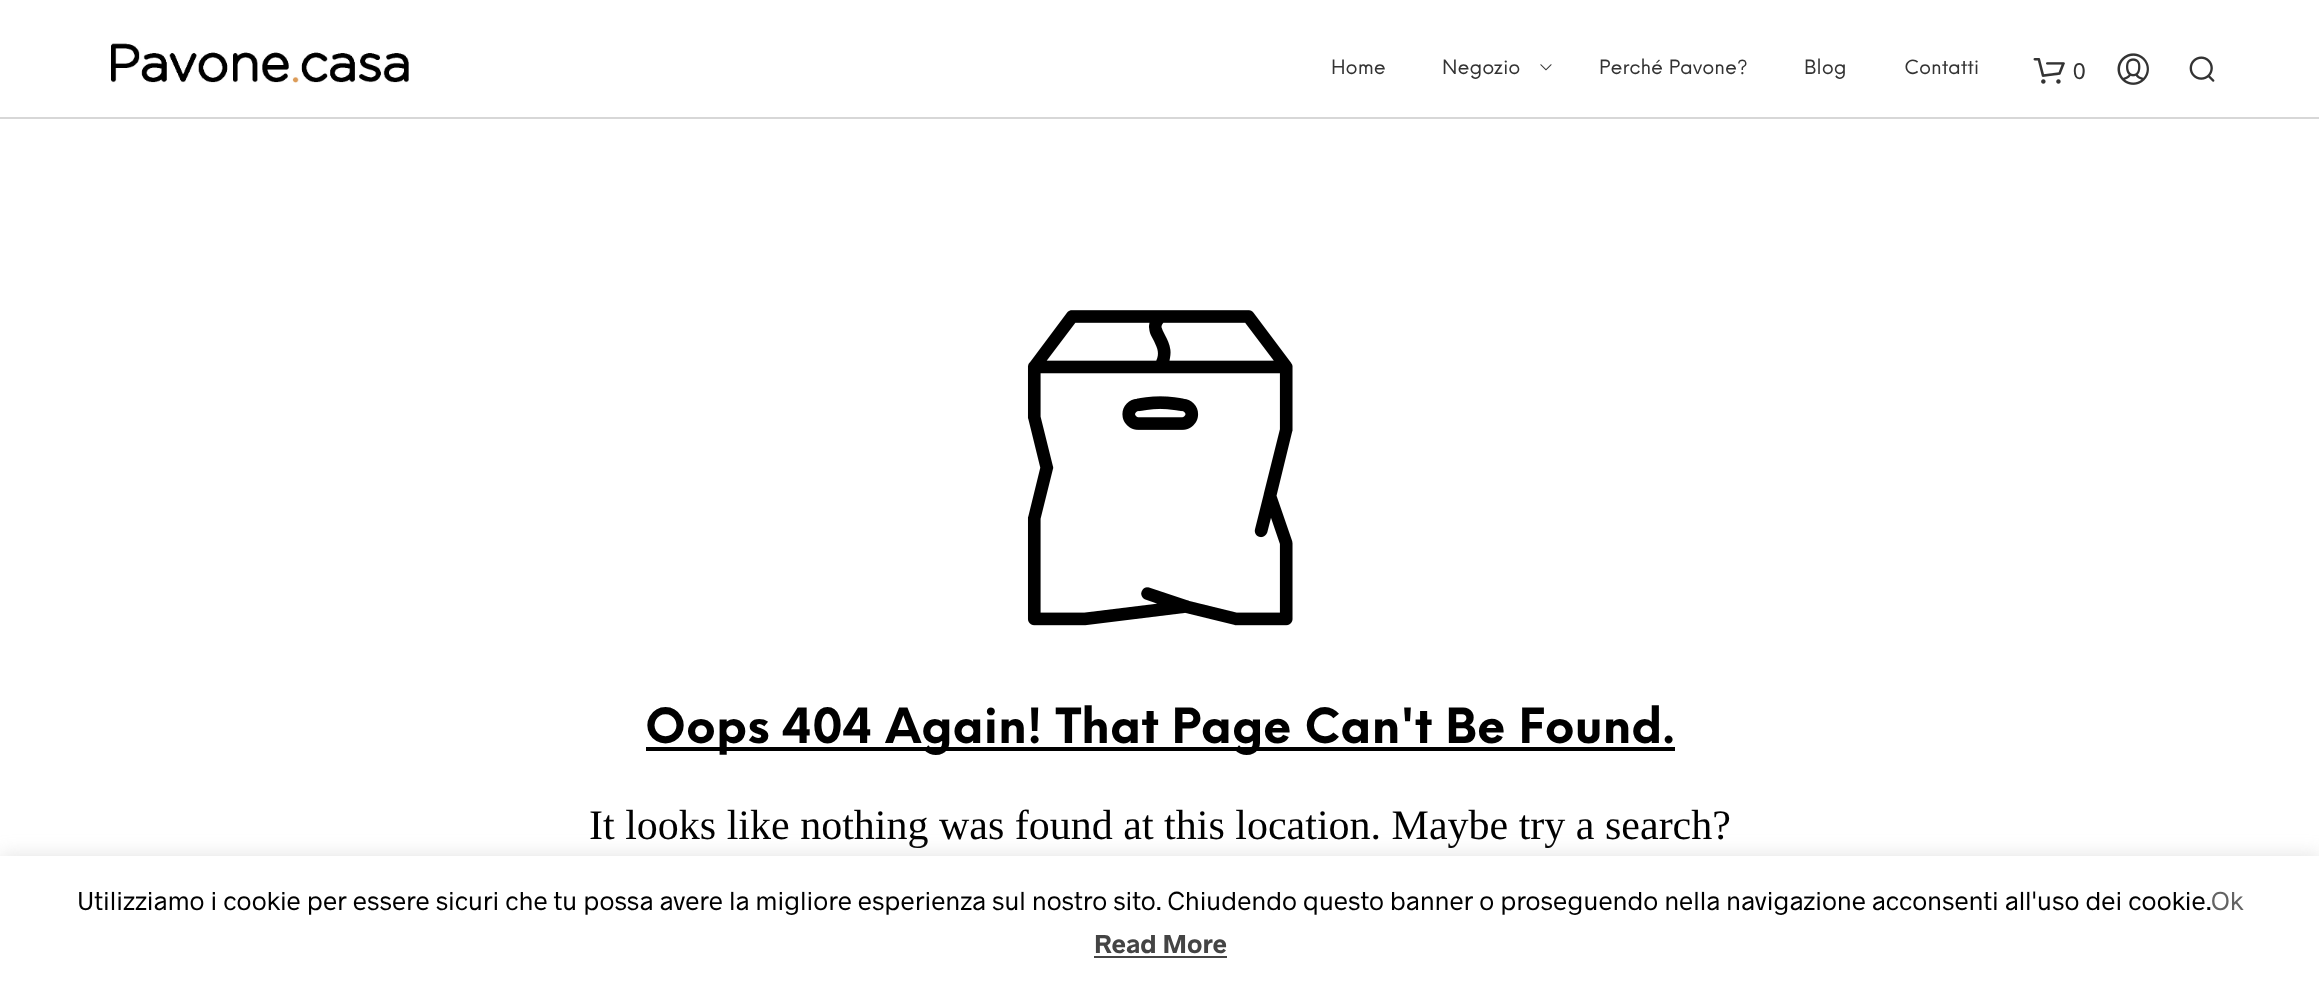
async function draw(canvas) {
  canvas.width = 2319
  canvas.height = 983
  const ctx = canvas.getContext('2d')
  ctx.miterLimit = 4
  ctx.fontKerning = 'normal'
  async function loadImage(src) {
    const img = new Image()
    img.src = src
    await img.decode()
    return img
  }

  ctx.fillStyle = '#fff'
  ctx.fillRect(0, 0, 2319, 983)
  ctx.fillStyle = '#d7d7d7'
  ctx.fillRect(0, 117, 2319, 2)
  ctx.drawImage(await loadImage('image0.png'), 111, 43, 298, 40)
  ctx.font = '19.25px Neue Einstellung'
  ctx.fillStyle = '#333'
  ctx.fillText('Home', 1331, 74)
  ctx.fillText('Negozio', 1442, 74)
  ctx.drawImage(await loadImage('image1.png'), 1540, 64, 12, 7)
  ctx.fillText('Perché Pavone?', 1599, 74)
  ctx.fillText('Blog', 1804, 74)
  ctx.fillText('Contatti', 1904, 74)
  ctx.drawImage(await loadImage('image2.png'), 2033, 58, 32, 26)
  ctx.font = '23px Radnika'
  ctx.fillText('0', 2073, 79)
  ctx.drawImage(await loadImage('image3.png'), 2117, 53, 32, 32)
  ctx.drawImage(await loadImage('image4.png'), 2189, 56, 26, 26)
  ctx.drawImage(await loadImage('image5.png'), 1027, 310, 266, 316)
  ctx.fillStyle = '#000'
  ctx.fillRect(646, 747, 1029, 4)
  ctx.font = 'bold 47.25px Neue Einstellung'
  ctx.fillText('Oops 404 Again! That Page Can\'t Be Found.', 645, 743)
  ctx.font = '42px Liberation Serif'
  ctx.fillText('It looks like nothing was found at this location. Maybe try a search?', 589, 839)
  ctx.fillStyle = '#acabab4d'
  ctx.filter = 'blur(9px)'
  ctx.beginPath()
  ctx.rect(0, 854, 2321, 128)
  ctx.fill()
  ctx.filter = 'none'
  ctx.fillStyle = '#fff'
  ctx.fillRect(0, 856, 2319, 127)
  ctx.font = '26.25px Radnika'
  ctx.fillStyle = '#000'
  ctx.fillText('Utilizziamo i cookie per essere sicuri che tu possa avere la migliore esperienza sul nostro sito. Chiudendo questo banner o proseguendo nella navigazione acconsenti all\'uso dei cookie.', 77, 910)
  ctx.fillStyle = '#636363'
  ctx.fillText('Ok', 2211, 910)
  ctx.font = 'bold 26.25px Radnika'
  ctx.fillStyle = '#444'
  ctx.fillText('Read More', 1094, 953)
  ctx.fillRect(1094, 956, 133, 2)
}

draw(document.querySelector('canvas'))
